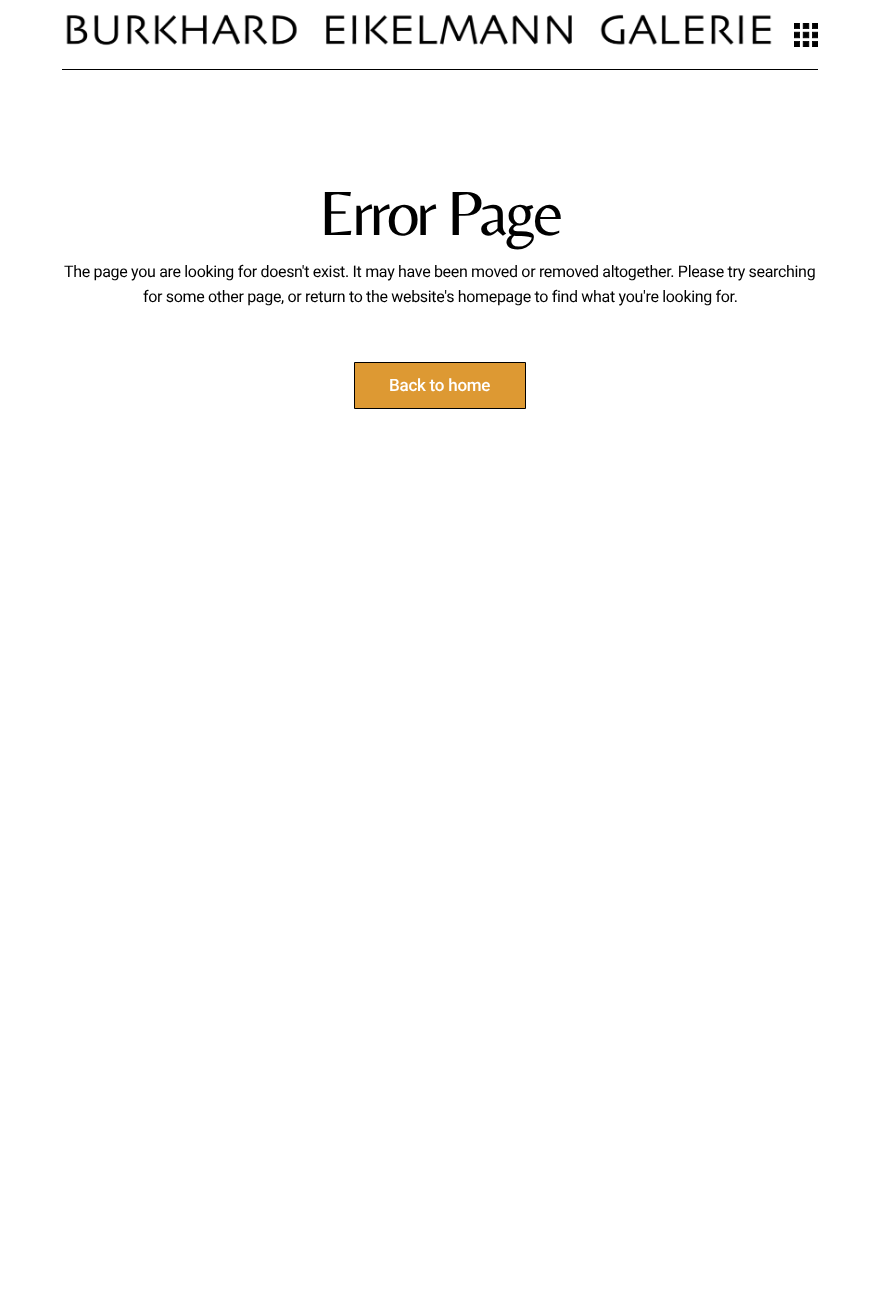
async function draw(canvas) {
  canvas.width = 880
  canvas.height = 1301
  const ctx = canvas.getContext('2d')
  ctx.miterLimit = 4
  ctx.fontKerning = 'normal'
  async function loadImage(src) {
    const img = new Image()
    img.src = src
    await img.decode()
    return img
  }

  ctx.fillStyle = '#fff'
  ctx.fillRect(0, 0, 880, 1301)
  ctx.fillStyle = '#000'
  ctx.fillRect(62, 69, 756, 1)
  ctx.drawImage(await loadImage('image0.png'), 66, 14, 706, 32)
  ctx.drawImage(await loadImage('image1.png'), 794, 23, 24, 24)
  ctx.letterSpacing = '-3.25px'
  ctx.font = '65px Belleza'
  ctx.fillText('Error Page', 319, 235)
  ctx.letterSpacing = '-0.32px'
  ctx.font = '16px Roboto'
  ctx.fillText('The page you are looking for doesn\'t exist. It may have been moved or removed altogether. Please try searching', 64, 277)
  ctx.fillText('for some other page, or return to the website\'s homepage to find what you\'re looking for.', 143, 302)
  ctx.fillStyle = '#d93'
  ctx.beginPath()
  ctx.rect(354.5, 362.5, 171, 46)
  ctx.fill()
  ctx.strokeStyle = '#000'
  ctx.stroke()
  ctx.letterSpacing = '-0.25px'
  ctx.font = '500 17px Roboto'
  ctx.fillStyle = '#fff'
  ctx.fillText('Back to home', 389, 391)
}

draw(document.querySelector('canvas'))
